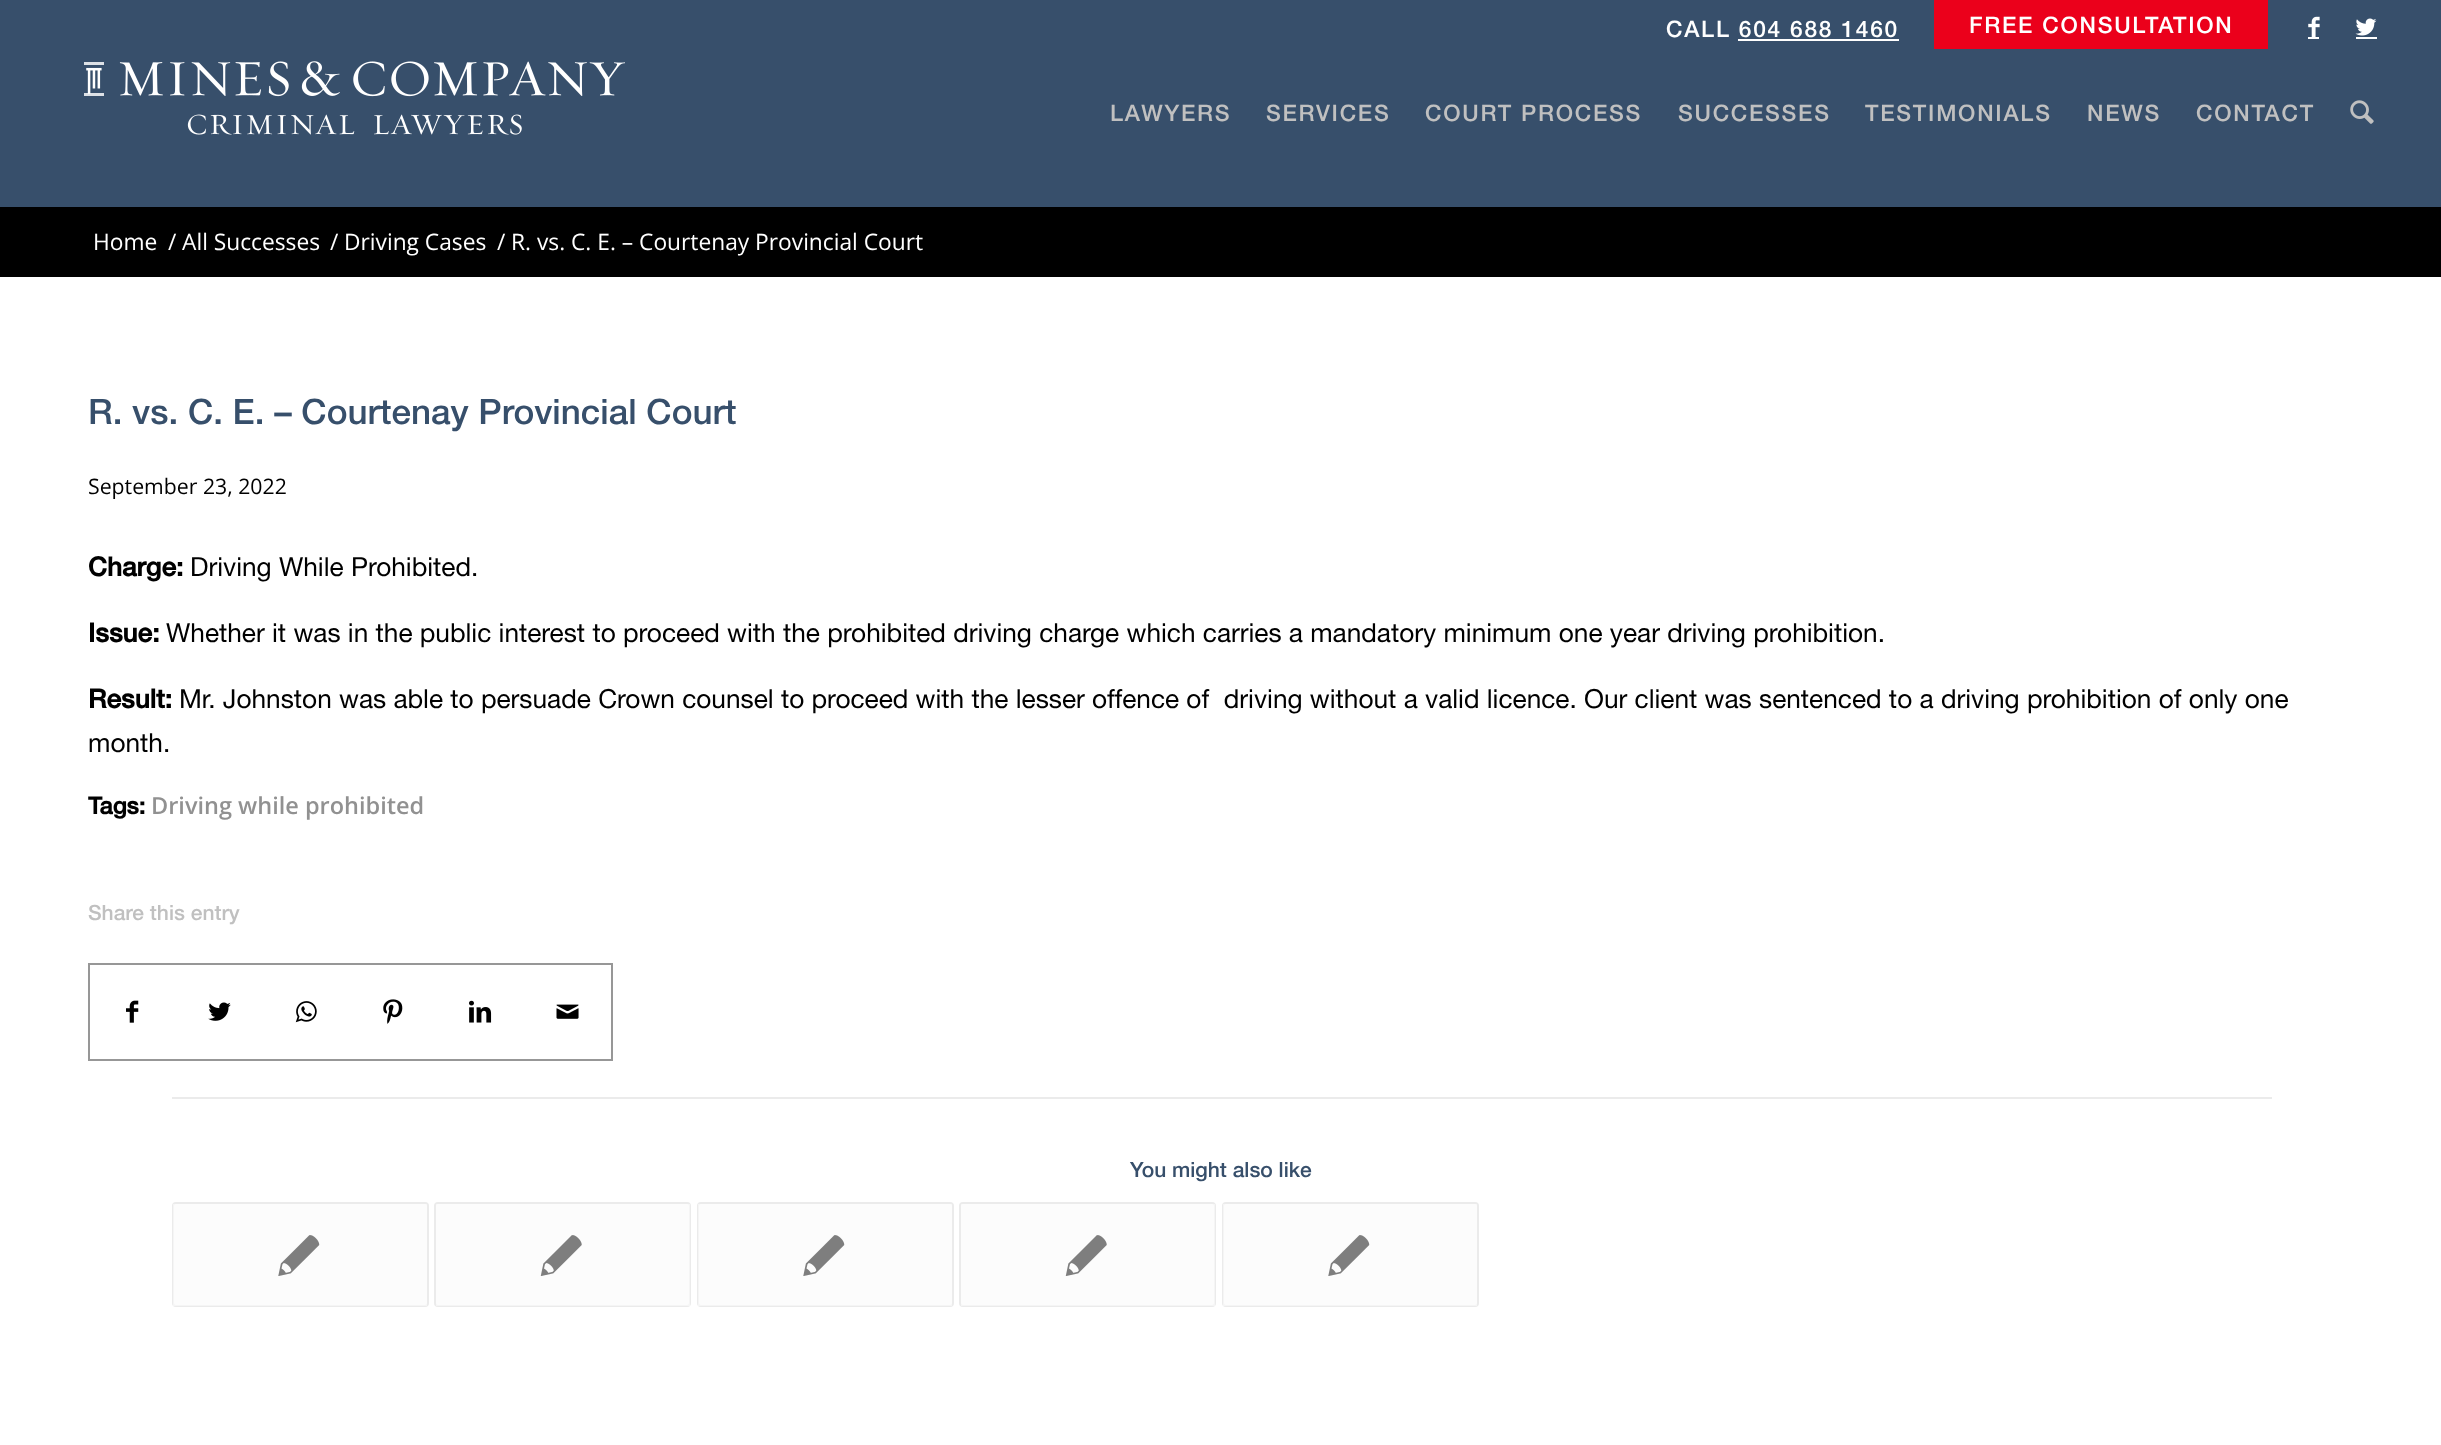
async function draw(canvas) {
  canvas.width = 2441
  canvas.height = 1445
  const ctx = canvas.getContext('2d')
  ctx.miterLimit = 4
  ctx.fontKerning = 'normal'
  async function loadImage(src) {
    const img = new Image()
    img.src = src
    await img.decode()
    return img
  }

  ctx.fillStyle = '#fff'
  ctx.fillRect(0, 0, 2441, 1445)
  ctx.fillStyle = '#374f6b'
  ctx.fillRect(0, 0, 2441, 207)
  ctx.letterSpacing = '1.75px'
  ctx.font = '500 22.75px "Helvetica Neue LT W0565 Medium"'
  ctx.fillStyle = '#fff'
  ctx.fillText('CALL 604 688 1460', 1666, 37)
  ctx.fillRect(1738, 39, 161, 2)
  ctx.fillStyle = '#eb001b'
  ctx.fillRect(1934, 0, 334, 49)
  ctx.fillStyle = '#fff'
  ctx.fillText('FREE CONSULTATION', 1969, 33)
  ctx.drawImage(await loadImage('image0.png'), 2308, 16, 12, 21)
  ctx.fillRect(2308, 37, 11, 2)
  ctx.drawImage(await loadImage('image1.png'), 2355, 18, 22, 18)
  ctx.fillRect(2356, 37, 21, 2)
  ctx.drawImage(await loadImage('image2.png'), 84, 61, 541, 74)
  ctx.fillStyle = '#c0c0c0'
  ctx.fillText('LAWYERS', 1110, 121)
  ctx.fillText('SERVICES', 1266, 121)
  ctx.fillText('COURT PROCESS', 1425, 121)
  ctx.fillText('SUCCESSES', 1678, 121)
  ctx.fillText('TESTIMONIALS', 1865, 121)
  ctx.fillText('NEWS', 2087, 121)
  ctx.fillText('CONTACT', 2196, 121)
  ctx.drawImage(await loadImage('image3.png'), 2350, 100, 24, 24)
  ctx.fillStyle = '#000'
  ctx.fillRect(0, 207, 2441, 70)
  ctx.letterSpacing = '0px'
  ctx.font = '22.75px Open Sans'
  ctx.fillStyle = '#fff'
  ctx.fillText('Home', 93, 250)
  ctx.fillText('/', 168, 250)
  ctx.fillText('All Successes', 182, 250)
  ctx.fillText('/', 330, 250)
  ctx.fillText('Driving Cases', 344, 250)
  ctx.fillText('/', 497, 250)
  ctx.fillText('R. vs. C. E. – Courtenay Provincial Court', 511, 250)
  ctx.font = '500 35px "Helvetica Neue LT W0565 Medium"'
  ctx.fillStyle = '#374f6b'
  ctx.fillText('R. vs. C. E. – Courtenay Provincial Court', 88, 424)
  ctx.font = '21.25px Open Sans'
  ctx.fillStyle = '#000'
  ctx.fillText('September 23, 2022', 88, 494)
  ctx.font = 'bold 26.25px "Helvetica Neue LT W0565 Medium"'
  ctx.fillText('Charge:', 88, 576)
  ctx.font = '26.25px "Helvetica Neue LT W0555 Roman"'
  ctx.fillText('Driving While Prohibited.', 190, 576)
  ctx.font = 'bold 26.25px "Helvetica Neue LT W0565 Medium"'
  ctx.fillText('Issue:', 88, 642)
  ctx.font = '26.25px "Helvetica Neue LT W0555 Roman"'
  ctx.fillText('Whether it was in the public interest to proceed with the prohibited driving charge which carries a mandatory minimum one year driving prohibition.', 166, 642)
  ctx.font = 'bold 26.25px "Helvetica Neue LT W0565 Medium"'
  ctx.fillText('Result:', 88, 708)
  ctx.font = '26.25px "Helvetica Neue LT W0555 Roman"'
  ctx.fillText('Mr. Johnston was able to persuade Crown counsel to proceed with the lesser offence of  driving without a valid licence. Our client was sentenced to a driving prohibition of only one', 179, 708)
  ctx.fillText('month.', 88, 752)
  ctx.font = 'bold 23.5px "Helvetica Neue LT W0565 Medium"'
  ctx.fillText('Tags:', 88, 814)
  ctx.font = '600 23.5px Open Sans'
  ctx.fillStyle = '#919191'
  ctx.fillText('Driving while prohibited', 151, 814)
  ctx.font = '500 21px "Helvetica Neue LT W0565 Medium"'
  ctx.fillStyle = '#c0c0c0'
  ctx.fillText('Share this entry', 88, 920)
  ctx.strokeStyle = '#979797'
  ctx.lineWidth = 2
  ctx.strokeRect(89, 964, 523, 96)
  ctx.drawImage(await loadImage('image4.png'), 126, 1000, 13, 23)
  ctx.drawImage(await loadImage('image5.png'), 208, 1002, 23, 19)
  ctx.drawImage(await loadImage('image6.png'), 295, 1001, 22, 22)
  ctx.drawImage(await loadImage('image7.png'), 383, 999, 20, 25)
  ctx.drawImage(await loadImage('image8.png'), 469, 1000, 23, 23)
  ctx.drawImage(await loadImage('image9.png'), 556, 1004, 23, 15)
  ctx.fillStyle = '#ebebeb'
  ctx.fillRect(172, 1097, 2100, 2)
  ctx.fillStyle = '#374f6b'
  ctx.fillText('You might also like', 1130, 1177)
  ctx.fillStyle = '#f8f8f8'
  ctx.beginPath()
  ctx.roundRect(173, 1203, 255, 103, 3)
  ctx.fill()
  ctx.strokeStyle = '#ebebeb'
  ctx.stroke()
  ctx.fillStyle = '#ffffff80'
  ctx.fillRect(173, 1204, 254, 102)
  ctx.drawImage(await loadImage('image10.png'), 278, 1235, 42, 41)
  ctx.fillStyle = '#f8f8f8'
  ctx.beginPath()
  ctx.roundRect(435, 1203, 255, 103, 3)
  ctx.fill()
  ctx.stroke()
  ctx.fillStyle = '#ffffff80'
  ctx.fillRect(436, 1204, 254, 102)
  ctx.drawImage(await loadImage('image11.png'), 540, 1235, 42, 41)
  ctx.fillStyle = '#f8f8f8'
  ctx.beginPath()
  ctx.roundRect(698, 1203, 255, 103, 3)
  ctx.fill()
  ctx.stroke()
  ctx.fillStyle = '#ffffff80'
  ctx.fillRect(698, 1204, 254, 102)
  ctx.drawImage(await loadImage('image10.png'), 803, 1235, 42, 41)
  ctx.fillStyle = '#f8f8f8'
  ctx.beginPath()
  ctx.roundRect(960, 1203, 255, 103, 3)
  ctx.fill()
  ctx.stroke()
  ctx.fillStyle = '#ffffff80'
  ctx.fillRect(961, 1204, 254, 102)
  ctx.drawImage(await loadImage('image11.png'), 1065, 1235, 42, 41)
  ctx.fillStyle = '#f8f8f8'
  ctx.beginPath()
  ctx.roundRect(1223, 1203, 255, 103, 3)
  ctx.fill()
  ctx.stroke()
  ctx.fillStyle = '#ffffff80'
  ctx.fillRect(1223, 1204, 254, 102)
  ctx.drawImage(await loadImage('image10.png'), 1328, 1235, 42, 41)
}

draw(document.querySelector('canvas'))
